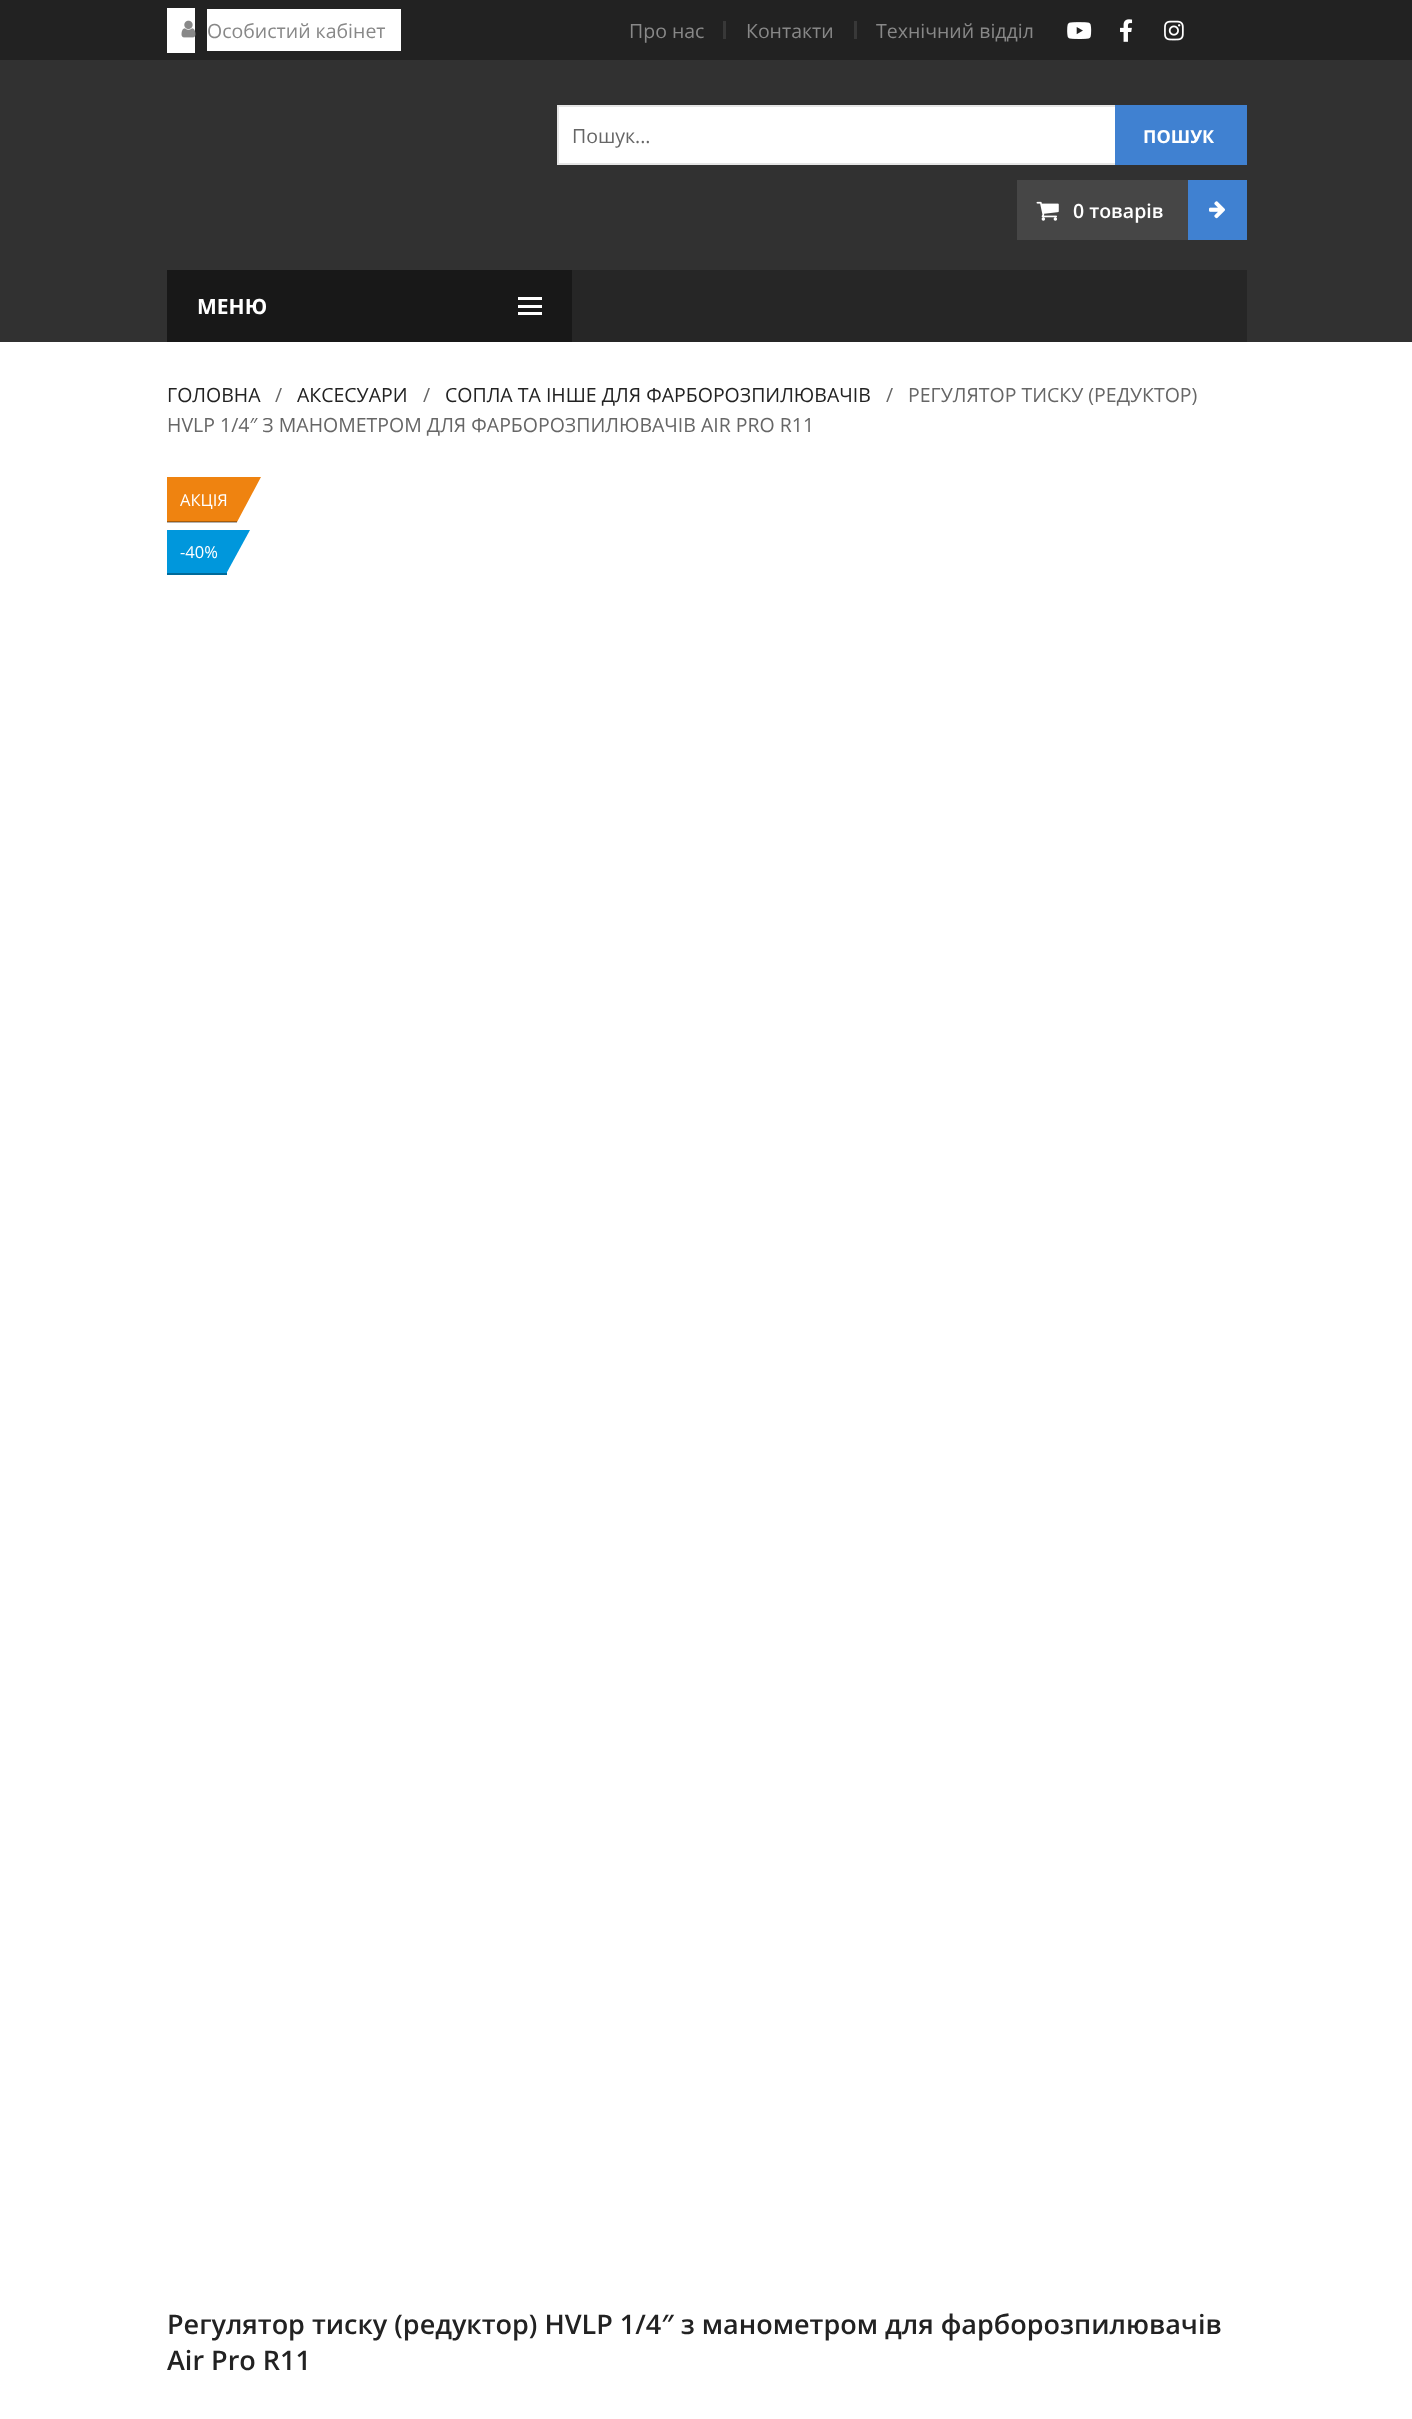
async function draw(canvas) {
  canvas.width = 1412
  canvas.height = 2419
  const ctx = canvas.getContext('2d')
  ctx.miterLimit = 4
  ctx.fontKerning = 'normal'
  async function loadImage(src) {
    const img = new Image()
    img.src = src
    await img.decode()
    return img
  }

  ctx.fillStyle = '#fff'
  ctx.fillRect(0, 0, 1412, 2419)
  ctx.fillStyle = '#b3b3b3'
  ctx.fillRect(167, 522, 70, 1)
  ctx.fillStyle = '#313131'
  ctx.fillRect(0, 60, 1412, 282)
  ctx.fillStyle = '#222'
  ctx.fillRect(0, 0, 1412, 60)
  ctx.fillStyle = '#fff'
  ctx.fillRect(167, 8, 28, 45)
  ctx.fillRect(207, 9, 194, 42)
  ctx.drawImage(await loadImage('image0.png'), 181, 20, 15, 18)
  ctx.font = '19.5px Open Sans'
  ctx.fillStyle = '#888'
  ctx.fillText('Особистий кабінет', 207, 38)
  ctx.fillText('Про нас', 629, 38)
  ctx.fillStyle = '#383838'
  ctx.fillRect(723, 21, 3, 18)
  ctx.fillStyle = '#888'
  ctx.fillText('Контакти', 746, 38)
  ctx.fillStyle = '#383838'
  ctx.fillRect(854, 21, 3, 18)
  ctx.fillStyle = '#888'
  ctx.fillText('Технічний відділ', 876, 38)
  ctx.drawImage(await loadImage('image1.png'), 1067, 22, 25, 17)
  ctx.drawImage(await loadImage('image2.png'), 1120, 19, 13, 23)
  ctx.drawImage(await loadImage('image3.png'), 1164, 20, 20, 21)
  ctx.fillStyle = '#fff'
  ctx.fillRect(559, 107, 556, 56)
  ctx.strokeStyle = '#e5e5e5'
  ctx.lineWidth = 2
  ctx.strokeRect(558, 106, 686, 58)
  ctx.fillStyle = '#666'
  ctx.fillText('Пошук...', 572, 143)
  ctx.fillStyle = '#4081d1'
  ctx.fillRect(1115, 105, 132, 60)
  ctx.font = 'bold 18px Open Sans'
  ctx.fillStyle = '#fff'
  ctx.fillText('ПОШУК', 1143, 143)
  ctx.fillStyle = '#464646'
  ctx.fillRect(1017, 180, 171, 60)
  ctx.drawImage(await loadImage('image4.png'), 1036, 201, 23, 20)
  ctx.font = '600 19.5px Open Sans'
  ctx.fillStyle = '#fff'
  ctx.fillText('0 товарів', 1073, 218)
  ctx.fillStyle = '#4081d1'
  ctx.fillRect(1188, 180, 59, 60)
  ctx.drawImage(await loadImage('image5.png'), 1209, 201, 16, 18)
  ctx.fillStyle = '#262626'
  ctx.fillRect(572, 270, 675, 72)
  ctx.fillStyle = '#181818'
  ctx.fillRect(167, 270, 405, 72)
  ctx.font = 'bold 21px Open Sans'
  ctx.fillStyle = '#fff'
  ctx.fillText('МЕНЮ', 197, 314)
  ctx.fillRect(518, 297, 24, 3)
  ctx.fillRect(518, 305, 24, 3)
  ctx.fillRect(518, 312, 24, 3)
  ctx.font = '19.5px Open Sans'
  ctx.fillStyle = '#222'
  ctx.fillText('ГОЛОВНА', 167, 402)
  ctx.fillStyle = '#666'
  ctx.fillText('/', 275, 402)
  ctx.fillStyle = '#222'
  ctx.fillText('АКСЕСУАРИ', 297, 402)
  ctx.fillStyle = '#666'
  ctx.fillText('/', 423, 402)
  ctx.fillStyle = '#222'
  ctx.fillText('СОПЛА ТА ІНШЕ ДЛЯ ФАРБОРОЗПИЛЮВАЧІВ', 445, 402)
  ctx.fillStyle = '#666'
  ctx.fillText('/', 886, 402)
  ctx.fillText('РЕГУЛЯТОР ТИСКУ (РЕДУКТОР)', 908, 402)
  ctx.fillText('HVLP 1/4″ З МАНОМЕТРОМ ДЛЯ ФАРБОРОЗПИЛЮВАЧІВ AIR PRO R11', 167, 432)
  ctx.fillStyle = '#ef8310'
  ctx.fillRect(167, 477, 70, 44)
  ctx.fillStyle = '#a75c0b'
  ctx.fillRect(167, 521, 70, 1)
  ctx.font = '16.5px Open Sans'
  ctx.fillStyle = '#fff'
  ctx.fillText('АКЦІЯ', 180, 506)
  ctx.fillStyle = '#ef8310'
  ctx.beginPath()
  ctx.moveTo(237, 522)
  ctx.lineTo(237, 477)
  ctx.lineTo(261, 477)
  ctx.closePath()
  ctx.fill()
  ctx.fillStyle = '#0097dc'
  ctx.fillRect(167, 530, 60, 43)
  ctx.fillStyle = '#fff'
  ctx.fillText('-40%', 180, 558)
  ctx.fillStyle = '#0097dc'
  ctx.beginPath()
  ctx.moveTo(226, 574)
  ctx.lineTo(226, 530)
  ctx.lineTo(250, 530)
  ctx.closePath()
  ctx.fill()
  ctx.fillStyle = '#006a9a'
  ctx.fillRect(167, 573, 60, 2)
  ctx.font = '600 27px Open Sans'
  ctx.fillStyle = '#222'
  ctx.fillText('Регулятор тиску (редуктор) HVLP 1/4″ з манометром для фарборозпилювачів', 167, 2334)
  ctx.fillText('Air Pro R11', 167, 2370)
}

draw(document.querySelector('canvas'))
